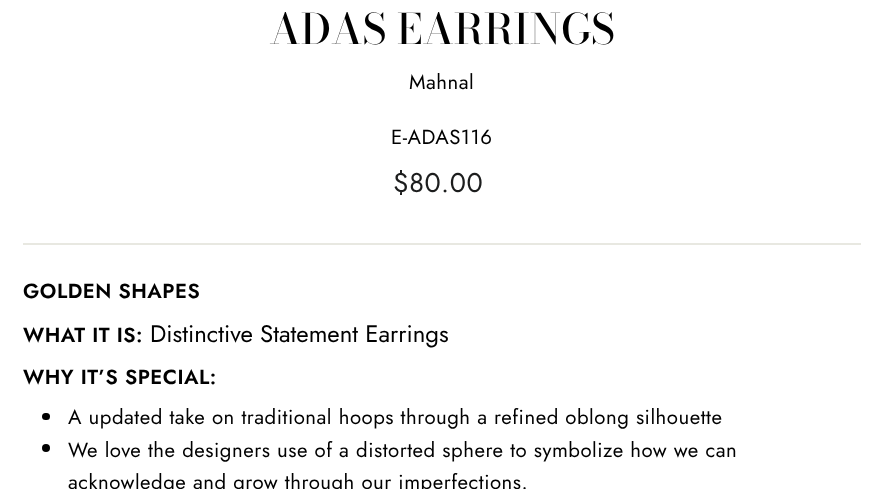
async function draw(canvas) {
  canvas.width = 886
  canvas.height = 489
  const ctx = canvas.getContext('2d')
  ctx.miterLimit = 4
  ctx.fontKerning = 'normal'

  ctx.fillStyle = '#fff'
  ctx.fillRect(0, 0, 886, 489)
  ctx.font = '500 41.75px Bodoni Moda'
  ctx.fillStyle = '#000'
  ctx.fillText('ADAS EARRINGS', 269, 44)
  ctx.letterSpacing = '0.5px'
  ctx.font = '20.4px Jost'
  ctx.fillText('Mahnal', 409, 89)
  ctx.fillText('E-ADAS116', 391, 144)
  ctx.font = '27px Jost'
  ctx.fillStyle = '#1c1d1d'
  ctx.fillText('$80.00', 393, 192)
  ctx.fillStyle = '#e8e8e1'
  ctx.fillRect(23, 243, 838, 2)
  ctx.font = '600 20.4px Jost'
  ctx.fillStyle = '#000'
  ctx.fillText('GOLDEN SHAPES', 23, 298)
  ctx.fillText('WHAT IT IS:', 23, 342)
  ctx.letterSpacing = '0px'
  ctx.font = '24px Jost'
  ctx.fillText('Distinctive Statement Earrings', 150, 342)
  ctx.letterSpacing = '0.5px'
  ctx.font = '600 20.4px Jost'
  ctx.fillText('WHY IT’S SPECIAL:', 23, 384)
  ctx.beginPath()
  ctx.roundRect(42, 413, 8, 7, 3.5)
  ctx.fill()
  ctx.font = '20.4px Jost'
  ctx.fillText('A updated take on traditional hoops through a refined oblong silhouette', 68, 424)
  ctx.beginPath()
  ctx.arc(46, 448, 4, 0, 2 * Math.PI)
  ctx.fill()
  ctx.fillText('We love the designers use of a distorted sphere to symbolize how we can', 68, 457)
  ctx.fillText('acknowledge and grow through our imperfections.', 68, 489)
}

draw(document.querySelector('canvas'))
